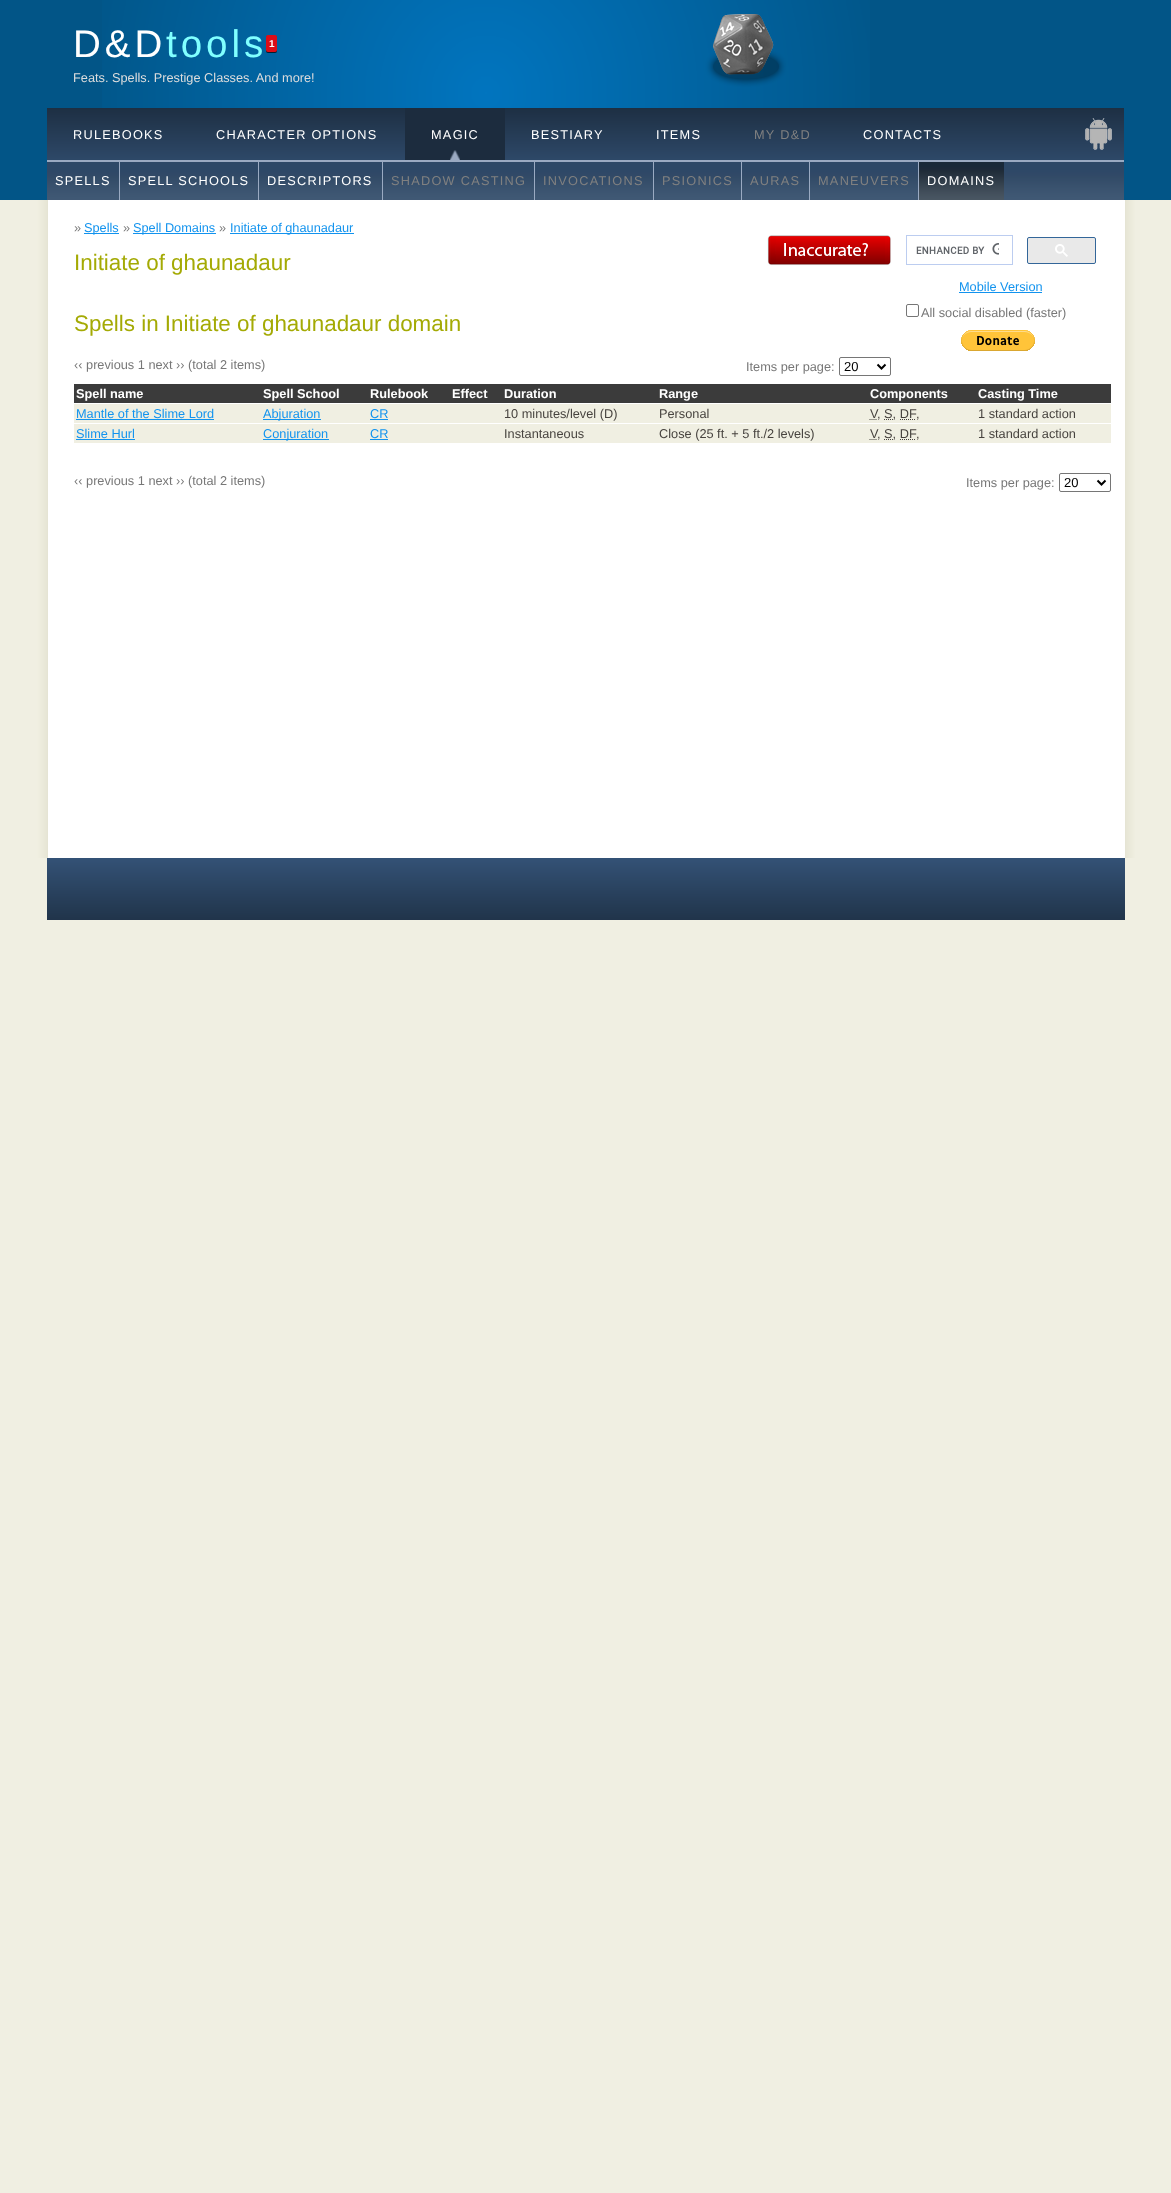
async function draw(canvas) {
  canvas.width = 1171
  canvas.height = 2193
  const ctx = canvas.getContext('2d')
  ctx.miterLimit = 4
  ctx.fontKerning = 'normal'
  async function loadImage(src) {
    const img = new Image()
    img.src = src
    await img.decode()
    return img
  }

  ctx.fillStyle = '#f0efe2'
  ctx.fillRect(0, 0, 1171, 2193)
  ctx.fillStyle = '#025587'
  ctx.fillRect(0, 0, 1171, 200)
  ctx.drawImage(await loadImage('image0.png'), 102, 0, 768, 108)
  ctx.letterSpacing = '4px'
  ctx.font = '38.5px Liberation Sans'
  ctx.fillStyle = '#fff'
  ctx.fillText('D&D', 73, 57)
  ctx.fillStyle = '#80ffff'
  ctx.fillText('tools', 166, 57)
  ctx.fillStyle = '#000000b3'
  ctx.filter = 'blur(0.5px)'
  ctx.beginPath()
  ctx.roundRect(266, 36, 11, 17, 2)
  ctx.fill()
  ctx.filter = 'none'
  ctx.fillStyle = '#dc0d17'
  ctx.beginPath()
  ctx.roundRect(266, 35, 11, 17, 2)
  ctx.fill()
  ctx.letterSpacing = '0px'
  ctx.font = 'bold 10px Liberation Sans'
  ctx.fillStyle = '#fff'
  ctx.fillText('1', 269, 47)
  ctx.font = '12.75px Liberation Sans'
  ctx.fillStyle = '#ddd'
  ctx.fillText('Feats. Spells. Prestige Classes. And more!', 73, 82)
  ctx.drawImage(await loadImage('image1.png'), 47, 108, 1077, 52)
  ctx.letterSpacing = '1.25px'
  ctx.fillStyle = '#fff'
  ctx.fillText('RULEBOOKS', 73, 139)
  ctx.fillText('CHARACTER OPTIONS', 216, 139)
  ctx.fillStyle = '#1c2c3e'
  ctx.fillRect(405, 108, 100, 52)
  ctx.drawImage(await loadImage('image2.png'), 450, 150, 10, 10)
  ctx.fillStyle = '#fff'
  ctx.fillText('MAGIC', 431, 139)
  ctx.fillText('BESTIARY', 531, 139)
  ctx.fillText('ITEMS', 656, 139)
  ctx.fillStyle = '#808080'
  ctx.fillText('MY D&D', 754, 139)
  ctx.fillStyle = '#fff'
  ctx.fillText('CONTACTS', 863, 139)
  ctx.drawImage(await loadImage('image3.png'), 1085, 118, 27, 32)
  ctx.drawImage(await loadImage('image4.png'), 47, 160, 1077, 40)
  ctx.fillText('SPELLS', 55, 185)
  ctx.fillStyle = '#9aaac2'
  ctx.fillRect(119, 160, 1, 40)
  ctx.fillStyle = '#fff'
  ctx.fillText('SPELL SCHOOLS', 128, 185)
  ctx.fillStyle = '#9aaac2'
  ctx.fillRect(258, 160, 1, 40)
  ctx.fillStyle = '#fff'
  ctx.fillText('DESCRIPTORS', 267, 185)
  ctx.fillStyle = '#9aaac2'
  ctx.fillRect(382, 160, 1, 40)
  ctx.fillStyle = '#808080'
  ctx.fillText('SHADOW CASTING', 391, 185)
  ctx.fillStyle = '#9aaac2'
  ctx.fillRect(534, 160, 1, 40)
  ctx.fillStyle = '#808080'
  ctx.fillText('INVOCATIONS', 543, 185)
  ctx.fillStyle = '#9aaac2'
  ctx.fillRect(653, 160, 1, 40)
  ctx.fillStyle = '#808080'
  ctx.fillText('PSIONICS', 662, 185)
  ctx.fillStyle = '#9aaac2'
  ctx.fillRect(741, 160, 1, 40)
  ctx.fillStyle = '#808080'
  ctx.fillText('AURAS', 750, 185)
  ctx.fillStyle = '#9aaac2'
  ctx.fillRect(809, 160, 1, 40)
  ctx.fillStyle = '#808080'
  ctx.fillText('MANEUVERS', 818, 185)
  ctx.drawImage(await loadImage('image5.png'), 919, 160, 85, 40)
  ctx.fillStyle = '#9aaac2'
  ctx.fillRect(918, 160, 1, 40)
  ctx.fillStyle = '#fff'
  ctx.fillText('DOMAINS', 927, 185)
  ctx.drawImage(await loadImage('image6.png'), 37, 200, 1098, 658)
  ctx.letterSpacing = '0px'
  ctx.fillStyle = '#777'
  ctx.fillText('»', 74, 232)
  ctx.fillStyle = '#1293ee'
  ctx.fillRect(84, 233, 35, 1)
  ctx.fillText('Spells', 84, 232)
  ctx.fillStyle = '#777'
  ctx.fillText('»', 123, 232)
  ctx.fillStyle = '#1293ee'
  ctx.fillRect(133, 233, 83, 1)
  ctx.fillText('Spell Domains', 133, 232)
  ctx.fillStyle = '#777'
  ctx.fillText('»', 219, 232)
  ctx.fillStyle = '#1293ee'
  ctx.fillRect(230, 233, 124, 1)
  ctx.fillText('Initiate of ghaunadaur', 230, 232)
  ctx.font = '22.4px Liberation Sans'
  ctx.fillStyle = '#a4aa04'
  ctx.fillText('Initiate of ghaunadaur', 74, 270)
  ctx.drawImage(await loadImage('image7.png'), 767, 235, 124, 31)
  ctx.fillText('Spells in Initiate of ghaunadaur domain', 74, 331)
  ctx.font = '12.75px Liberation Sans'
  ctx.fillStyle = '#777'
  ctx.fillText('‹‹ previous 1 next ›› (total 2 items)', 74, 369)
  ctx.fillText('Items per page:', 746, 371)
  ctx.beginPath()
  ctx.roundRect(839.5, 357.5, 51, 18, 1.5)
  ctx.strokeStyle = '#767676'
  ctx.stroke()
  ctx.beginPath()
  ctx.moveTo(877.5, 364.5)
  ctx.lineTo(881.5, 368.5)
  ctx.lineTo(885.5, 364.5)
  ctx.strokeStyle = '#000'
  ctx.lineWidth = 2
  ctx.stroke()
  ctx.font = '13px Liberation Sans'
  ctx.fillStyle = '#000'
  ctx.fillText('20', 844, 371)
  ctx.fillStyle = '#3b3b3b'
  ctx.fillRect(74, 384, 1037, 19)
  ctx.font = 'bold 12.75px Liberation Sans'
  ctx.fillStyle = '#fff'
  ctx.fillText('Spell name', 76, 398)
  ctx.fillText('Spell School', 263, 398)
  ctx.fillText('Rulebook', 370, 398)
  ctx.fillText('Effect', 452, 398)
  ctx.fillText('Duration', 504, 398)
  ctx.fillText('Range', 659, 398)
  ctx.fillText('Components', 870, 398)
  ctx.fillText('Casting Time', 978, 398)
  ctx.fillStyle = '#f0efe2'
  ctx.fillRect(74, 404, 1037, 19)
  ctx.font = '12.75px Liberation Sans'
  ctx.fillStyle = '#1293ee'
  ctx.fillText('Mantle of the Slime Lord', 76, 418)
  ctx.fillRect(76, 419, 138, 1)
  ctx.fillRect(263, 419, 58, 1)
  ctx.fillText('Abjuration', 263, 418)
  ctx.fillText('CR', 370, 418)
  ctx.fillRect(370, 419, 18, 1)
  ctx.fillStyle = '#47433f'
  ctx.fillText('10 minutes/level (D)', 504, 418)
  ctx.fillText('Personal', 659, 418)
  ctx.fillText('V', 870, 418)
  ctx.beginPath()
  ctx.moveTo(869.5, 419.5)
  ctx.lineTo(877, 419.5)
  ctx.strokeStyle = '#47433f'
  ctx.lineWidth = 1
  ctx.setLineDash([1, 1])
  ctx.stroke()
  ctx.fillText(', S, DF', 877, 418)
  ctx.beginPath()
  ctx.moveTo(884, 419.5)
  ctx.lineTo(893, 419.5)
  ctx.moveTo(900, 419.5)
  ctx.lineTo(915.5, 419.5)
  ctx.stroke()
  ctx.fillText(',', 916, 418)
  ctx.fillText('1 standard action', 978, 418)
  ctx.fillStyle = '#f0efe2'
  ctx.fillRect(74, 424, 1037, 19)
  ctx.fillStyle = '#1293ee'
  ctx.fillText('Slime Hurl', 76, 438)
  ctx.fillRect(76, 439, 59, 1)
  ctx.fillRect(263, 439, 66, 1)
  ctx.fillText('Conjuration', 263, 438)
  ctx.fillText('CR', 370, 438)
  ctx.fillRect(370, 439, 18, 1)
  ctx.fillStyle = '#47433f'
  ctx.fillText('Instantaneous', 504, 438)
  ctx.fillText('Close (25 ft. + 5 ft./2 levels)', 659, 438)
  ctx.fillText('V', 870, 438)
  ctx.beginPath()
  ctx.moveTo(869.5, 439.5)
  ctx.lineTo(877, 439.5)
  ctx.stroke()
  ctx.fillText(', S, DF', 877, 438)
  ctx.beginPath()
  ctx.moveTo(884, 439.5)
  ctx.lineTo(893, 439.5)
  ctx.moveTo(900, 439.5)
  ctx.lineTo(915.5, 439.5)
  ctx.stroke()
  ctx.fillText(',', 916, 438)
  ctx.fillText('1 standard action', 978, 438)
  ctx.fillStyle = '#777'
  ctx.fillText('‹‹ previous 1 next ›› (total 2 items)', 74, 485)
  ctx.fillText('Items per page:', 966, 487)
  ctx.beginPath()
  ctx.roundRect(1059.5, 473.5, 51, 18, 1.5)
  ctx.strokeStyle = '#767676'
  ctx.setLineDash([])
  ctx.stroke()
  ctx.beginPath()
  ctx.moveTo(1097.5, 480.5)
  ctx.lineTo(1101.5, 484.5)
  ctx.lineTo(1105.5, 480.5)
  ctx.strokeStyle = '#000'
  ctx.lineWidth = 2
  ctx.stroke()
  ctx.font = '13px Liberation Sans'
  ctx.fillStyle = '#000'
  ctx.fillText('20', 1064, 487)
  ctx.strokeStyle = '#bccdf0'
  ctx.lineWidth = 1
  ctx.strokeRect(906.5, 235.5, 106, 29)
  ctx.drawImage(await loadImage('image8.png'), 916, 243, 83, 12)
  ctx.fillStyle = '#e9e9e9'
  ctx.beginPath()
  ctx.roundRect(1027.5, 237.5, 68, 26, 1.5)
  ctx.fill()
  ctx.strokeStyle = '#369'
  ctx.stroke()
  ctx.drawImage(await loadImage('image9.png'), 1055, 244, 13, 13)
  ctx.font = '12.75px Liberation Sans'
  ctx.fillStyle = '#1293ee'
  ctx.fillText('Mobile Version', 959, 291)
  ctx.fillRect(959, 292, 83, 1)
  ctx.beginPath()
  ctx.roundRect(906.5, 304.5, 12, 12, 1.5)
  ctx.strokeStyle = '#767676'
  ctx.stroke()
  ctx.fillStyle = '#777'
  ctx.fillText('All social disabled (faster)', 921, 317)
  ctx.drawImage(await loadImage('image10.png'), 961, 330, 74, 21)
  ctx.drawImage(await loadImage('image11.png'), 47, 858, 1078, 62)
}

draw(document.querySelector('canvas'))
